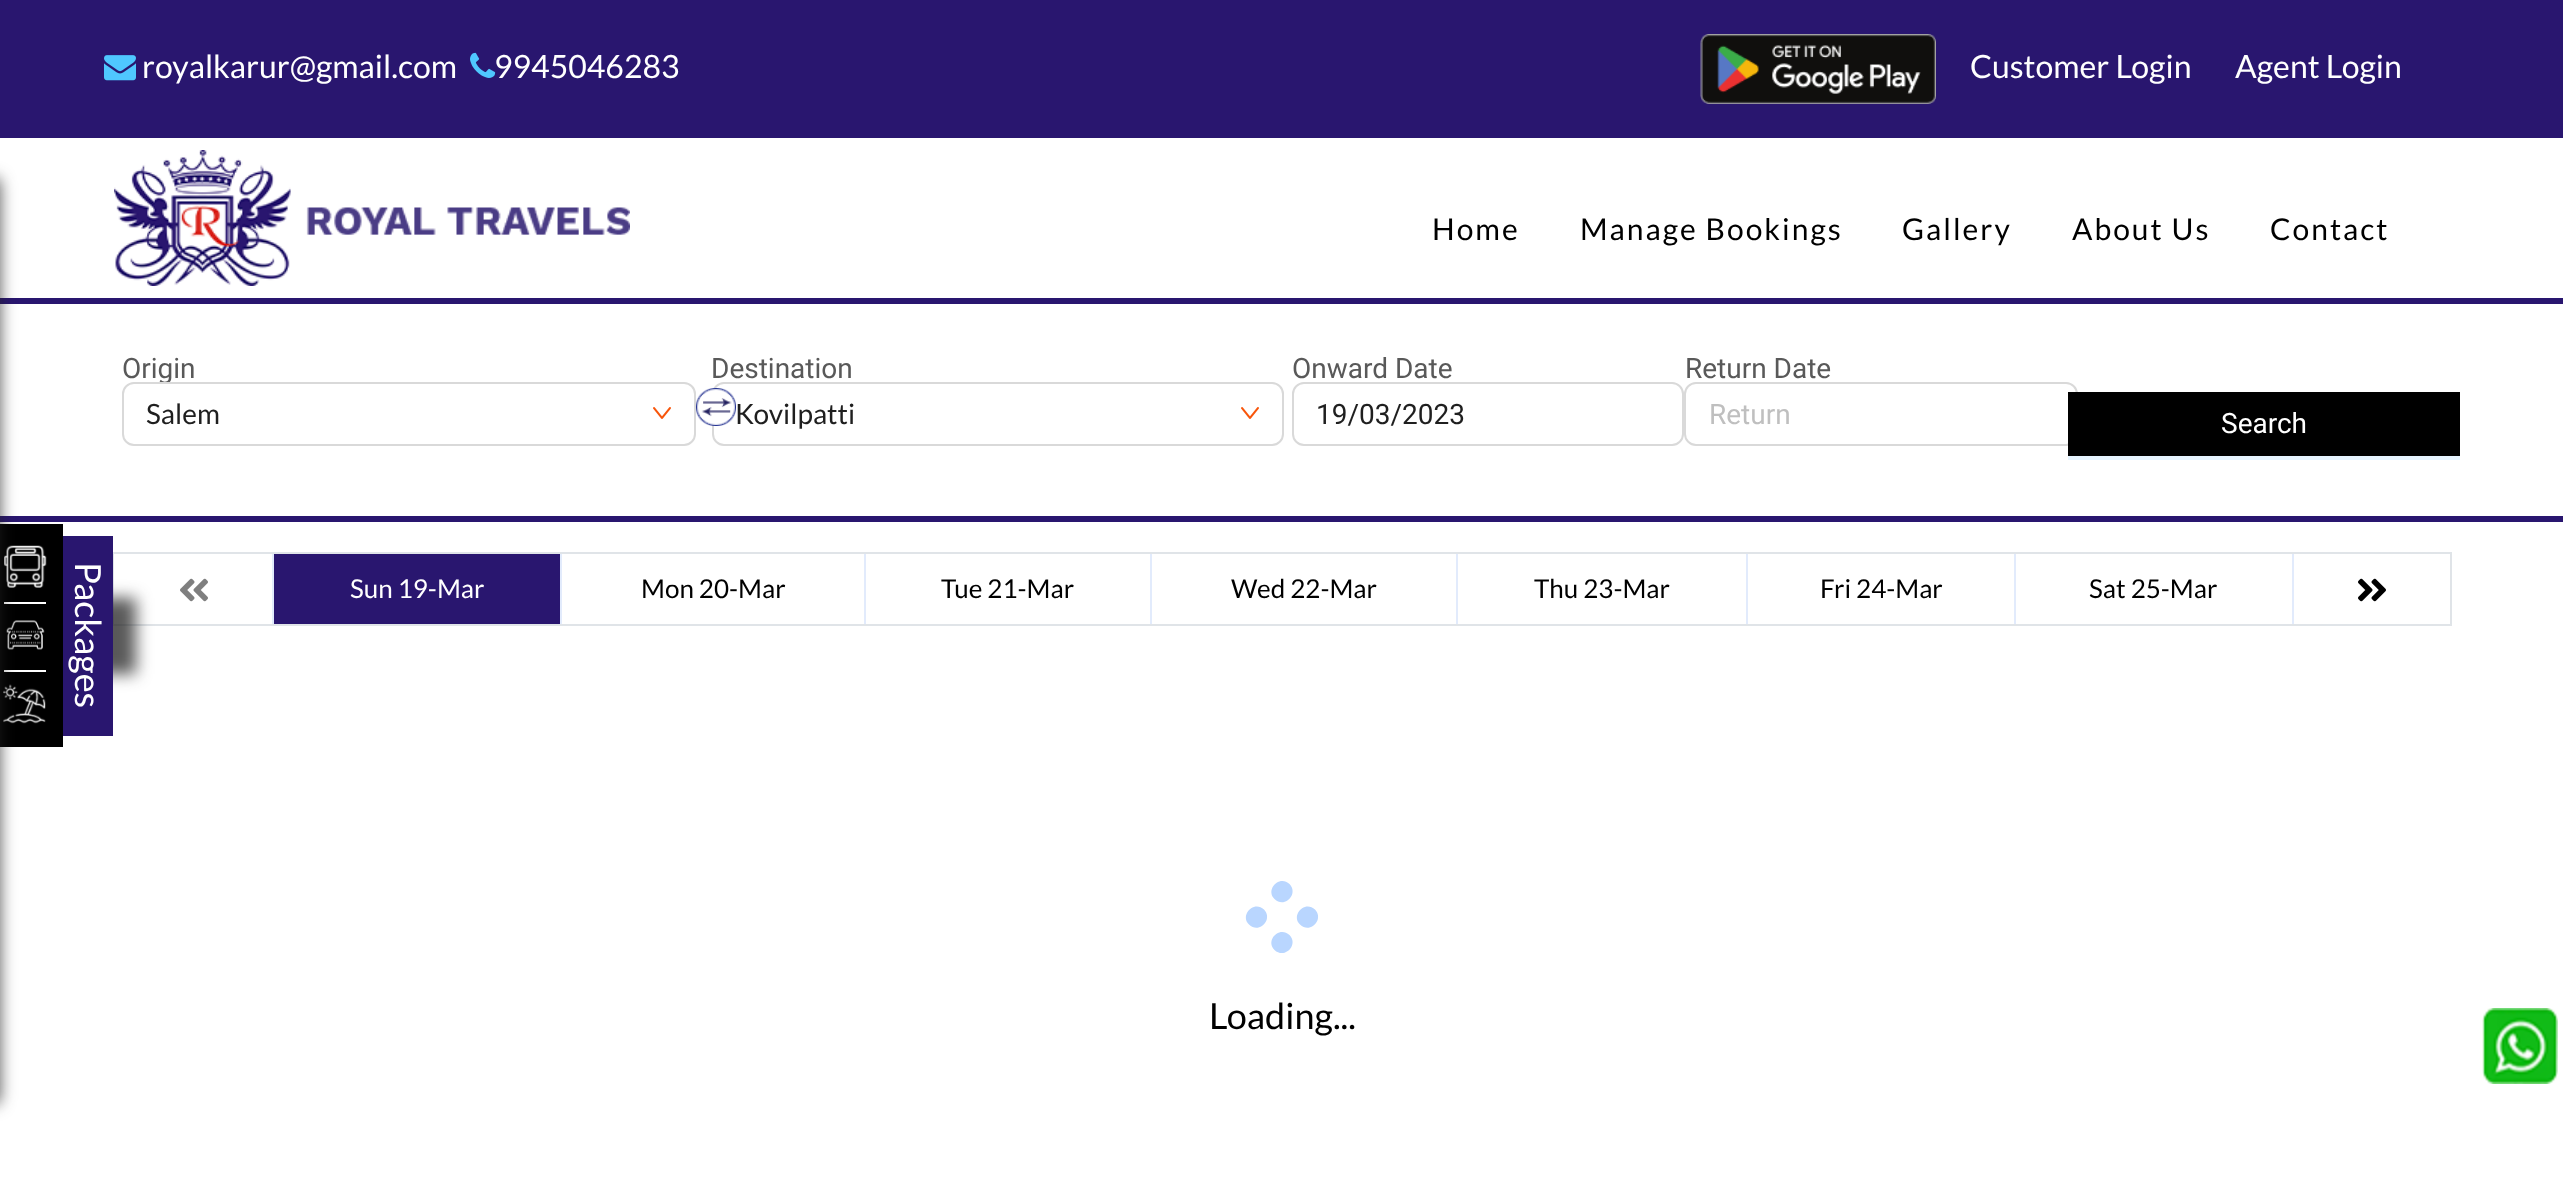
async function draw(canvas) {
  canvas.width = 2563
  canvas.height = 1184
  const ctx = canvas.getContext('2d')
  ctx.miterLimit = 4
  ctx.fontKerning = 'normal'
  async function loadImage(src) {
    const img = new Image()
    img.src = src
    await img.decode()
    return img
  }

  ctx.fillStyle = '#fff'
  ctx.fillRect(0, 0, 2563, 1184)
  ctx.fillStyle = '#29166f'
  ctx.fillRect(0, 0, 2563, 138)
  ctx.drawImage(await loadImage('image0.png'), 104, 55, 32, 26)
  ctx.font = '32px Lato'
  ctx.fillStyle = '#fff'
  ctx.fillText('royalkarur@gmail.com', 142, 78)
  ctx.drawImage(await loadImage('image1.png'), 470, 52, 26, 26)
  ctx.fillText('9945046283', 494, 78)
  ctx.drawImage(await loadImage('image2.png'), 1700, 34, 236, 70)
  ctx.fillText('Customer Login', 1970, 78)
  ctx.fillText('Agent Login', 2235, 78)
  ctx.drawImage(await loadImage('image3.png'), 114, 150, 516, 136)
  ctx.letterSpacing = '2px'
  ctx.font = '30px Lato'
  ctx.fillStyle = '#000'
  ctx.fillText('Home', 1432, 240)
  ctx.fillText('Manage Bookings', 1580, 240)
  ctx.fillText('Gallery', 1902, 240)
  ctx.fillText('About Us', 2072, 240)
  ctx.fillText('Contact', 2270, 240)
  ctx.strokeStyle = '#e0e4e8'
  ctx.lineWidth = 2
  ctx.strokeRect(113, 553, 2338, 72)
  ctx.fillStyle = '#222222bf'
  ctx.filter = 'blur(8px)'
  ctx.beginPath()
  ctx.rect(-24, 598, 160, 76)
  ctx.fill()
  ctx.filter = 'none'
  ctx.fillStyle = '#000'
  ctx.fillRect(0, 524, 63, 223)
  ctx.drawImage(await loadImage('image4.png'), 4, 545, 43, 43)
  ctx.fillStyle = '#fff'
  ctx.fillRect(4, 602, 42, 2)
  ctx.drawImage(await loadImage('image5.png'), 6, 620, 39, 30)
  ctx.fillRect(4, 670, 42, 2)
  ctx.drawImage(await loadImage('image6.png'), 3, 684, 43, 40)
  ctx.fillStyle = '#29166f'
  ctx.fillRect(0, 298, 2563, 6)
  ctx.fillRect(0, 516, 2563, 6)
  ctx.fillStyle = '#222222bf'
  ctx.filter = 'blur(8px)'
  ctx.beginPath()
  ctx.roundRect(-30, 178, 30, 926, 6)
  ctx.fill()
  ctx.filter = 'none'
  ctx.fillStyle = '#29166f'
  ctx.fillRect(63, 536, 50, 200)
  ctx.letterSpacing = '0px'
  ctx.font = '36px Lato'
  ctx.fillStyle = '#fff'
  ctx.save()
  ctx.translate(75, 562)
  ctx.rotate(90 * Math.PI / 180)
  ctx.fillText('Packages', 0, 0)
  ctx.restore()
  ctx.font = '28px Roboto'
  ctx.fillStyle = '#595959'
  ctx.fillText('Origin', 122, 378)
  ctx.fillStyle = '#fff'
  ctx.beginPath()
  ctx.roundRect(123, 383, 572, 62, 11)
  ctx.fill()
  ctx.strokeStyle = '#d9d9d9'
  ctx.stroke()
  ctx.font = '28px Lato'
  ctx.fillStyle = '#1f1f1f'
  ctx.fillText('Salem', 146, 424)
  ctx.drawImage(await loadImage('image7.png'), 653, 407, 18, 12)
  ctx.beginPath()
  ctx.roundRect(713, 383, 570, 62, 11)
  ctx.stroke()
  ctx.drawImage(await loadImage('image8.png'), 696, 388, 40, 38)
  ctx.font = '28px Roboto'
  ctx.fillStyle = '#595959'
  ctx.fillText('Destination', 711, 378)
  ctx.font = '28px Lato'
  ctx.fillStyle = '#1f1f1f'
  ctx.fillText('Kovilpatti', 735, 424)
  ctx.drawImage(await loadImage('image7.png'), 1241, 407, 18, 12)
  ctx.font = '28px Roboto'
  ctx.fillStyle = '#595959'
  ctx.fillText('Onward Date', 1292, 378)
  ctx.beginPath()
  ctx.roundRect(1293, 383, 390, 62, 11)
  ctx.stroke()
  ctx.fillStyle = '#1f1f1f'
  ctx.fillText('19/03/2023', 1316, 424)
  ctx.fillStyle = '#595959'
  ctx.fillText('Return Date', 1685, 378)
  ctx.beginPath()
  ctx.roundRect(1685, 383, 392, 62, 11)
  ctx.stroke()
  ctx.fillStyle = '#bfbfbf'
  ctx.fillText('Return', 1709, 424)
  ctx.fillStyle = '#e6f4ff'
  ctx.fillRect(2068, 456, 392, 4)
  ctx.fillStyle = '#000'
  ctx.fillRect(2068, 392, 392, 64)
  ctx.fillStyle = '#fff'
  ctx.fillText('Search', 2221, 433)
  ctx.fillStyle = '#e2ebfc'
  ctx.fillRect(272, 554, 2, 70)
  ctx.drawImage(await loadImage('image9.png'), 180, 578, 28, 24)
  ctx.fillRect(560, 554, 2, 70)
  ctx.fillStyle = '#29166f'
  ctx.fillRect(274, 554, 286, 70)
  ctx.font = '26px Lato'
  ctx.fillStyle = '#fff'
  ctx.fillText('Sun 19-Mar', 350, 598)
  ctx.fillStyle = '#e2ebfc'
  ctx.fillRect(864, 554, 2, 70)
  ctx.fillStyle = '#000'
  ctx.fillText('Mon 20-Mar', 641, 598)
  ctx.fillStyle = '#e2ebfc'
  ctx.fillRect(1150, 554, 2, 70)
  ctx.fillStyle = '#000'
  ctx.fillText('Tue 21-Mar', 941, 598)
  ctx.fillStyle = '#e2ebfc'
  ctx.fillRect(1456, 554, 2, 70)
  ctx.fillStyle = '#000'
  ctx.fillText('Wed 22-Mar', 1231, 598)
  ctx.fillStyle = '#e2ebfc'
  ctx.fillRect(1746, 554, 2, 70)
  ctx.fillStyle = '#000'
  ctx.fillText('Thu 23-Mar', 1534, 598)
  ctx.fillStyle = '#e2ebfc'
  ctx.fillRect(2014, 554, 2, 70)
  ctx.fillStyle = '#000'
  ctx.fillText('Fri 24-Mar', 1820, 598)
  ctx.fillStyle = '#e2ebfc'
  ctx.fillRect(2292, 554, 2, 70)
  ctx.fillStyle = '#000'
  ctx.fillText('Sat 25-Mar', 2089, 598)
  ctx.drawImage(await loadImage('image10.png'), 2358, 578, 28, 24)
  ctx.fillStyle = '#b9d6ff'
  ctx.beginPath()
  ctx.moveTo(1289.5, 884)
  ctx.bezierCurveTo(1299, 894, 1284.5, 909, 1274.5, 899)
  ctx.bezierCurveTo(1265, 889.5, 1279.5, 874.5, 1289.5, 884)
  ctx.closePath()
  ctx.moveTo(1315, 909.5)
  ctx.bezierCurveTo(1324.5, 919.5, 1310, 934.5, 1300, 924.5)
  ctx.bezierCurveTo(1290.5, 915, 1305, 900, 1315, 909.5)
  ctx.closePath()
  ctx.fill()
  ctx.beginPath()
  ctx.moveTo(1289.5, 935)
  ctx.bezierCurveTo(1299, 945, 1284.5, 959.5, 1274.5, 950)
  ctx.bezierCurveTo(1265, 940, 1279.5, 925.5, 1289.5, 935)
  ctx.closePath()
  ctx.moveTo(1264, 909.5)
  ctx.bezierCurveTo(1273.5, 919.5, 1259, 934.5, 1249, 924.5)
  ctx.bezierCurveTo(1239.5, 915, 1254, 900, 1264, 909.5)
  ctx.closePath()
  ctx.fill()
  ctx.font = '36px Lato'
  ctx.fillStyle = '#000'
  ctx.fillText('Loading...', 1209, 1029)
  ctx.drawImage(await loadImage('image11.png'), 2482, 1008, 76, 76)
}

draw(document.querySelector('canvas'))
